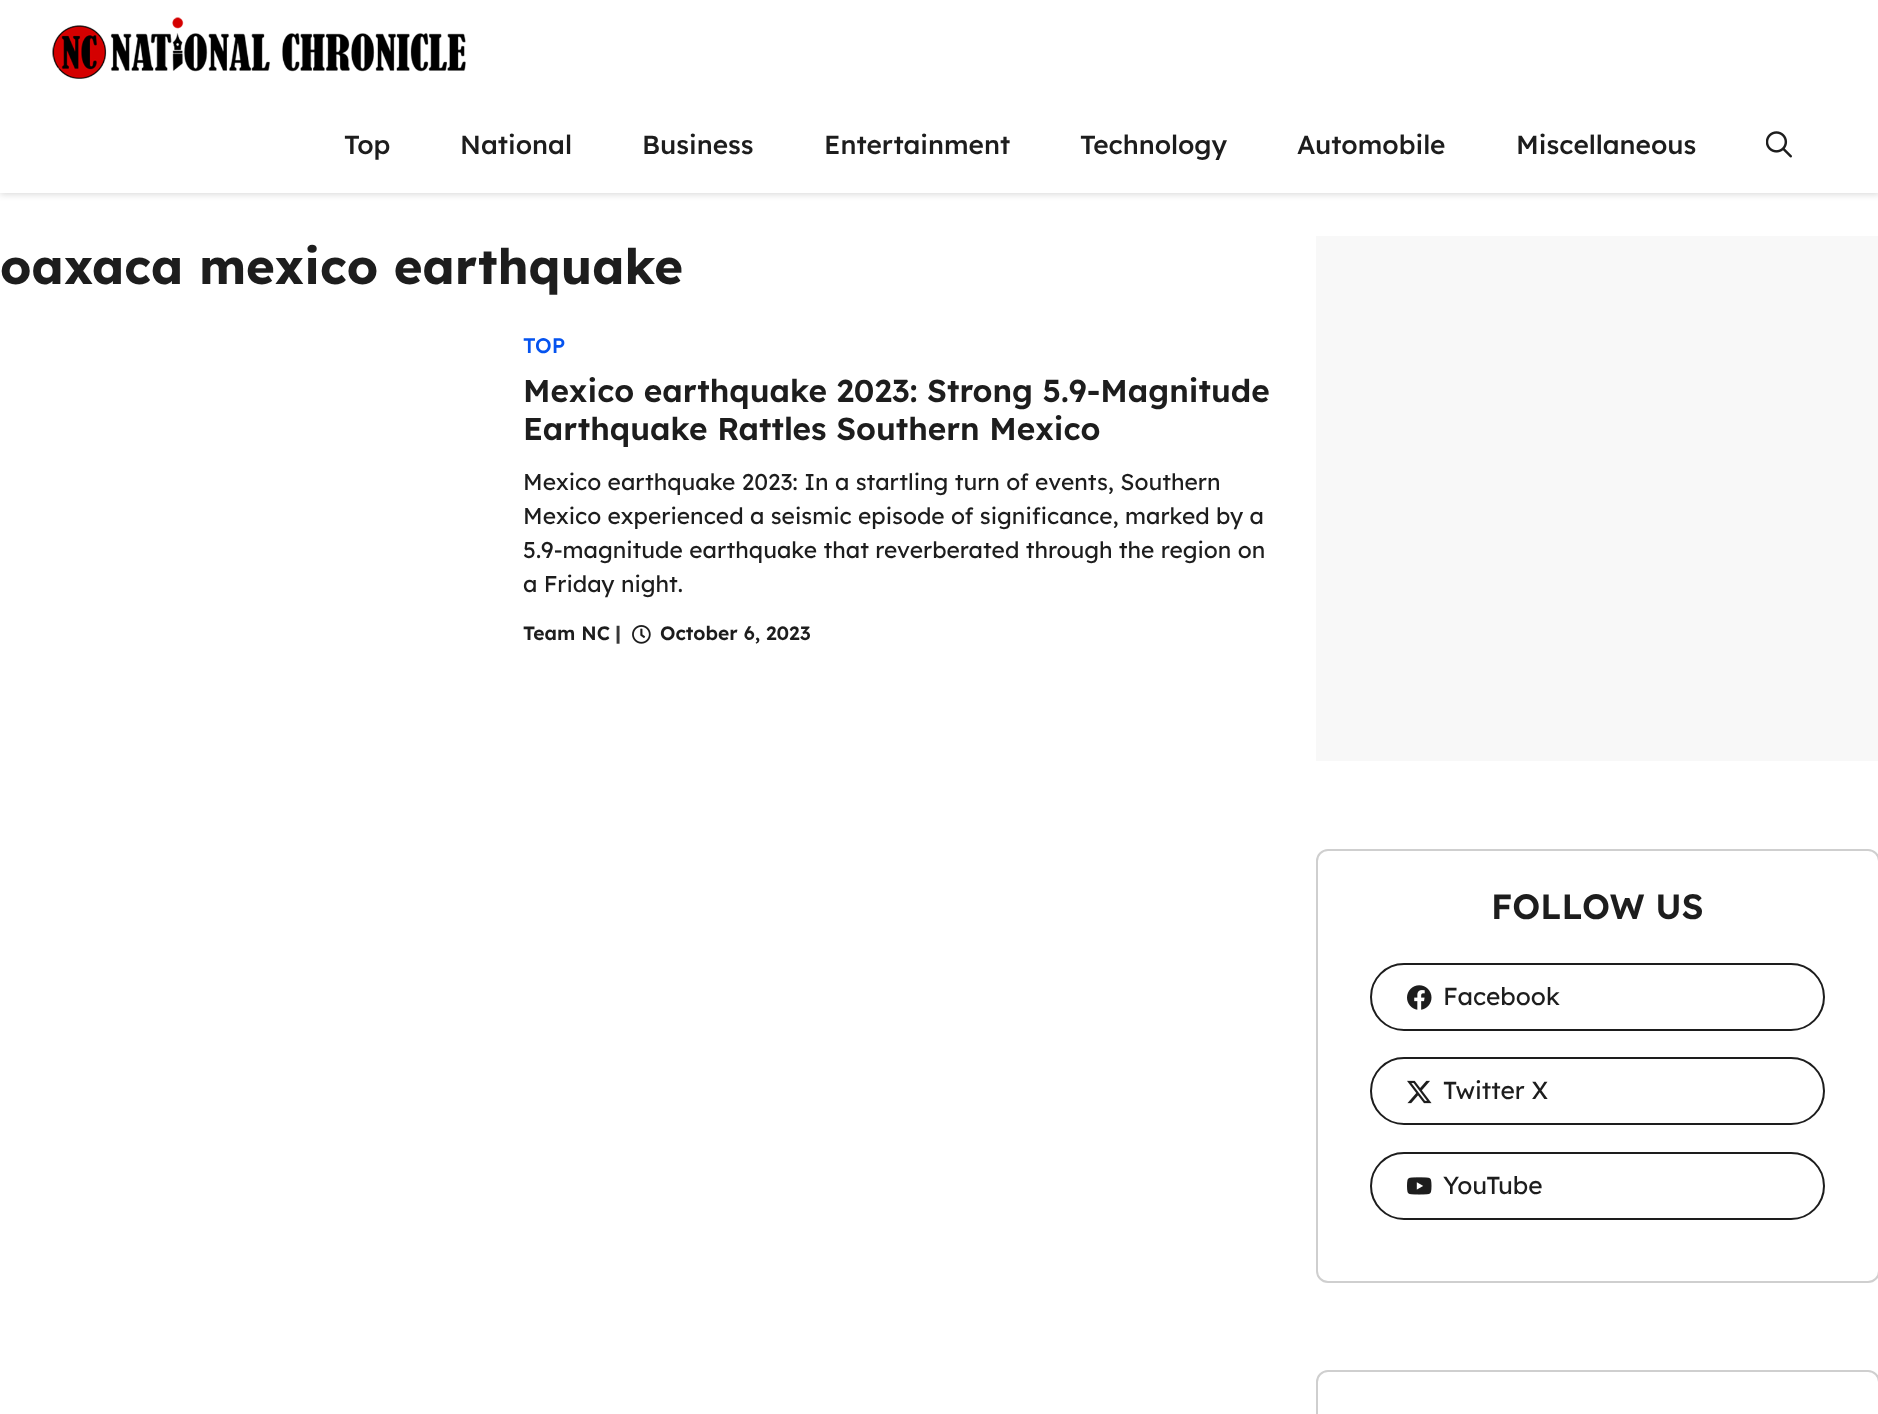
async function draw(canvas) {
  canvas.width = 1878
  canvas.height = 1414
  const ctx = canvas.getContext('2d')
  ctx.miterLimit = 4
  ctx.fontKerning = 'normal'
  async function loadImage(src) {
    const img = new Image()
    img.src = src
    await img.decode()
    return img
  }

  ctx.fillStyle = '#fff'
  ctx.fillRect(0, 0, 1878, 1414)
  ctx.fillStyle = '#00000029'
  ctx.filter = 'blur(3.5px)'
  ctx.beginPath()
  ctx.rect(0, 2, 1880, 192)
  ctx.fill()
  ctx.filter = 'none'
  ctx.fillStyle = '#fff'
  ctx.fillRect(0, 0, 1878, 193)
  ctx.drawImage(await loadImage('image0.png'), 52, 17, 414, 62)
  ctx.font = '500 26.25px Lexend Deca'
  ctx.fillStyle = '#1d1d1d'
  ctx.fillText('Top', 344, 154)
  ctx.fillText('National', 460, 154)
  ctx.fillText('Business', 642, 154)
  ctx.fillText('Entertainment', 824, 154)
  ctx.fillText('Technology', 1080, 154)
  ctx.fillText('Automobile', 1297, 154)
  ctx.fillText('Miscellaneous', 1516, 154)
  ctx.drawImage(await loadImage('image1.png'), 1766, 131, 26, 27)
  ctx.font = 'bold 49px Lexend Deca'
  ctx.fillText('oaxaca mexico earthquake', 0, 284)
  ctx.font = '500 21px Lexend Deca'
  ctx.fillStyle = '#0553ef'
  ctx.fillText('TOP', 523, 353)
  ctx.font = '600 31.5px Lexend Deca'
  ctx.fillStyle = '#1d1d1d'
  ctx.fillText('Mexico earthquake 2023: Strong 5.9-Magnitude', 523, 402)
  ctx.fillText('Earthquake Rattles Southern Mexico', 523, 440)
  ctx.font = '22.75px Lexend Deca'
  ctx.fillText('Mexico earthquake 2023: In a startling turn of events, Southern', 523, 490)
  ctx.fillText('Mexico experienced a seismic episode of significance, marked by a', 523, 524)
  ctx.fillText('5.9-magnitude earthquake that reverberated through the region on', 523, 558)
  ctx.fillText('a Friday night.', 523, 592)
  ctx.font = '600 19.25px Lexend Deca'
  ctx.fillText('Team NC', 523, 640)
  ctx.font = 'bold 19.25px Lexend Deca'
  ctx.fillStyle = '#383838'
  ctx.fillText('|', 615, 640)
  ctx.drawImage(await loadImage('image2.png'), 632, 625, 19, 19)
  ctx.font = '600 19.25px Lexend Deca'
  ctx.fillStyle = '#1d1d1d'
  ctx.fillText('October 6, 2023', 660, 640)
  ctx.fillStyle = '#f8f8f8'
  ctx.fillRect(1316, 236, 562, 525)
  ctx.beginPath()
  ctx.roundRect(1317, 850, 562, 432, 11)
  ctx.strokeStyle = '#cfcfcf'
  ctx.lineWidth = 2
  ctx.stroke()
  ctx.font = '600 35px Lexend Deca'
  ctx.fillStyle = '#1d1d1d'
  ctx.fillText('FOLLOW US', 1491, 919)
  ctx.beginPath()
  ctx.roundRect(1371, 964, 453, 66, 33)
  ctx.strokeStyle = '#1d1d1d'
  ctx.stroke()
  ctx.drawImage(await loadImage('image3.png'), 1407, 985, 25, 25)
  ctx.font = '24.5px Lexend Deca'
  ctx.fillText('Facebook', 1443, 1005)
  ctx.beginPath()
  ctx.roundRect(1371, 1058, 453, 66, 33)
  ctx.stroke()
  ctx.drawImage(await loadImage('image4.png'), 1407, 1080, 25, 24)
  ctx.fillText('Twitter X', 1443, 1099)
  ctx.beginPath()
  ctx.roundRect(1371, 1153, 453, 66, 33)
  ctx.stroke()
  ctx.drawImage(await loadImage('image5.png'), 1407, 1177, 25, 18)
  ctx.fillText('YouTube', 1443, 1194)
  ctx.beginPath()
  ctx.roundRect(1317, 1371, 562, 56, 11)
  ctx.strokeStyle = '#cfcfcf'
  ctx.stroke()
}

draw(document.querySelector('canvas'))
